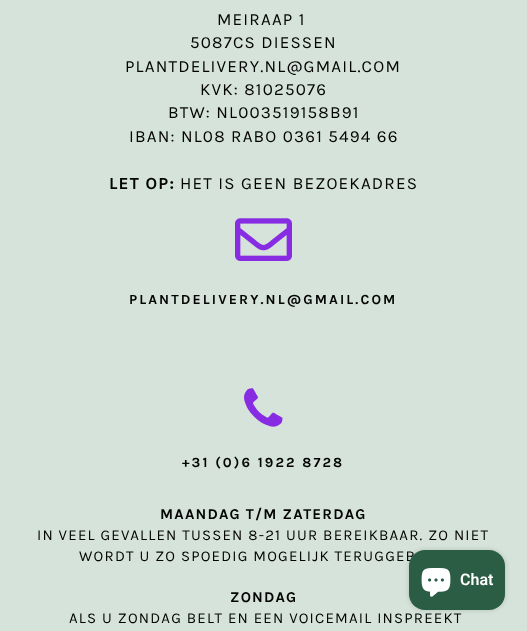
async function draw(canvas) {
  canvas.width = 527
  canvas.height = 631
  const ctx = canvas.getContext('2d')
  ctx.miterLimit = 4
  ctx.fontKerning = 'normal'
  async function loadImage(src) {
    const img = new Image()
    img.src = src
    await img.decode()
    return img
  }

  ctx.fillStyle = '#d5e3da'
  ctx.fillRect(0, 0, 527, 631)
  ctx.letterSpacing = '1.2px'
  ctx.font = '17px Karla'
  ctx.fillStyle = '#030303'
  ctx.fillText('MEIRAAP 1', 217, 25)
  ctx.fillText('5087CS DIESSEN', 190, 48)
  ctx.fillText('PLANTDELIVERY.NL@GMAIL.COM', 125, 72)
  ctx.fillText('KVK: 81025076', 200, 95)
  ctx.fillText('BTW: NL003519158B91', 168, 118)
  ctx.fillText('IBAN: NL08 RABO 0361 5494 66', 129, 142)
  ctx.font = 'bold 17px Karla'
  ctx.fillText('LET OP:', 109, 189)
  ctx.font = '17px Karla'
  ctx.fillText('HET IS GEEN BEZOEKADRES', 180, 189)
  ctx.drawImage(await loadImage('image0.png'), 235, 218, 57, 43)
  ctx.letterSpacing = '2.1px'
  ctx.font = 'bold 14px Karla'
  ctx.fillText('PLANTDELIVERY.NL@GMAIL.COM', 129, 304)
  ctx.drawImage(await loadImage('image1.png'), 244, 388, 39, 39)
  ctx.fillText('+31 (0)6 1922 8728', 182, 467)
  ctx.letterSpacing = '1.2px'
  ctx.font = 'bold 15px Karla'
  ctx.fillText('MAANDAG T/M ZATERDAG', 160, 519)
  ctx.font = '15px Karla'
  ctx.fillText('IN VEEL GEVALLEN TUSSEN 8-21 UUR BEREIKBAAR. ZO NIET', 37, 540)
  ctx.fillText('WORDT U ZO SPOEDIG MOGELIJK TERUGGEB', 79, 561)
  ctx.font = 'bold 15px Karla'
  ctx.fillText('ZONDAG', 230, 602)
  ctx.font = '15px Karla'
  ctx.fillText('ALS U ZONDAG BELT EN EEN VOICEMAIL INSPREEKT', 69, 623)
  ctx.fillStyle = '#00000026'
  ctx.filter = 'blur(2.5px)'
  ctx.beginPath()
  ctx.roundRect(409, 550, 96, 60, 16)
  ctx.fill()
  ctx.filter = 'none'
  ctx.fillStyle = '#2b5d45'
  ctx.beginPath()
  ctx.roundRect(409, 550, 96, 60, 16)
  ctx.fill()
  ctx.drawImage(await loadImage('image2.png'), 421, 568, 30, 29)
  ctx.letterSpacing = '0px'
  ctx.font = '600 16px Roboto'
  ctx.fillStyle = '#fff'
  ctx.fillText('Chat', 460, 585)
}

draw(document.querySelector('canvas'))
